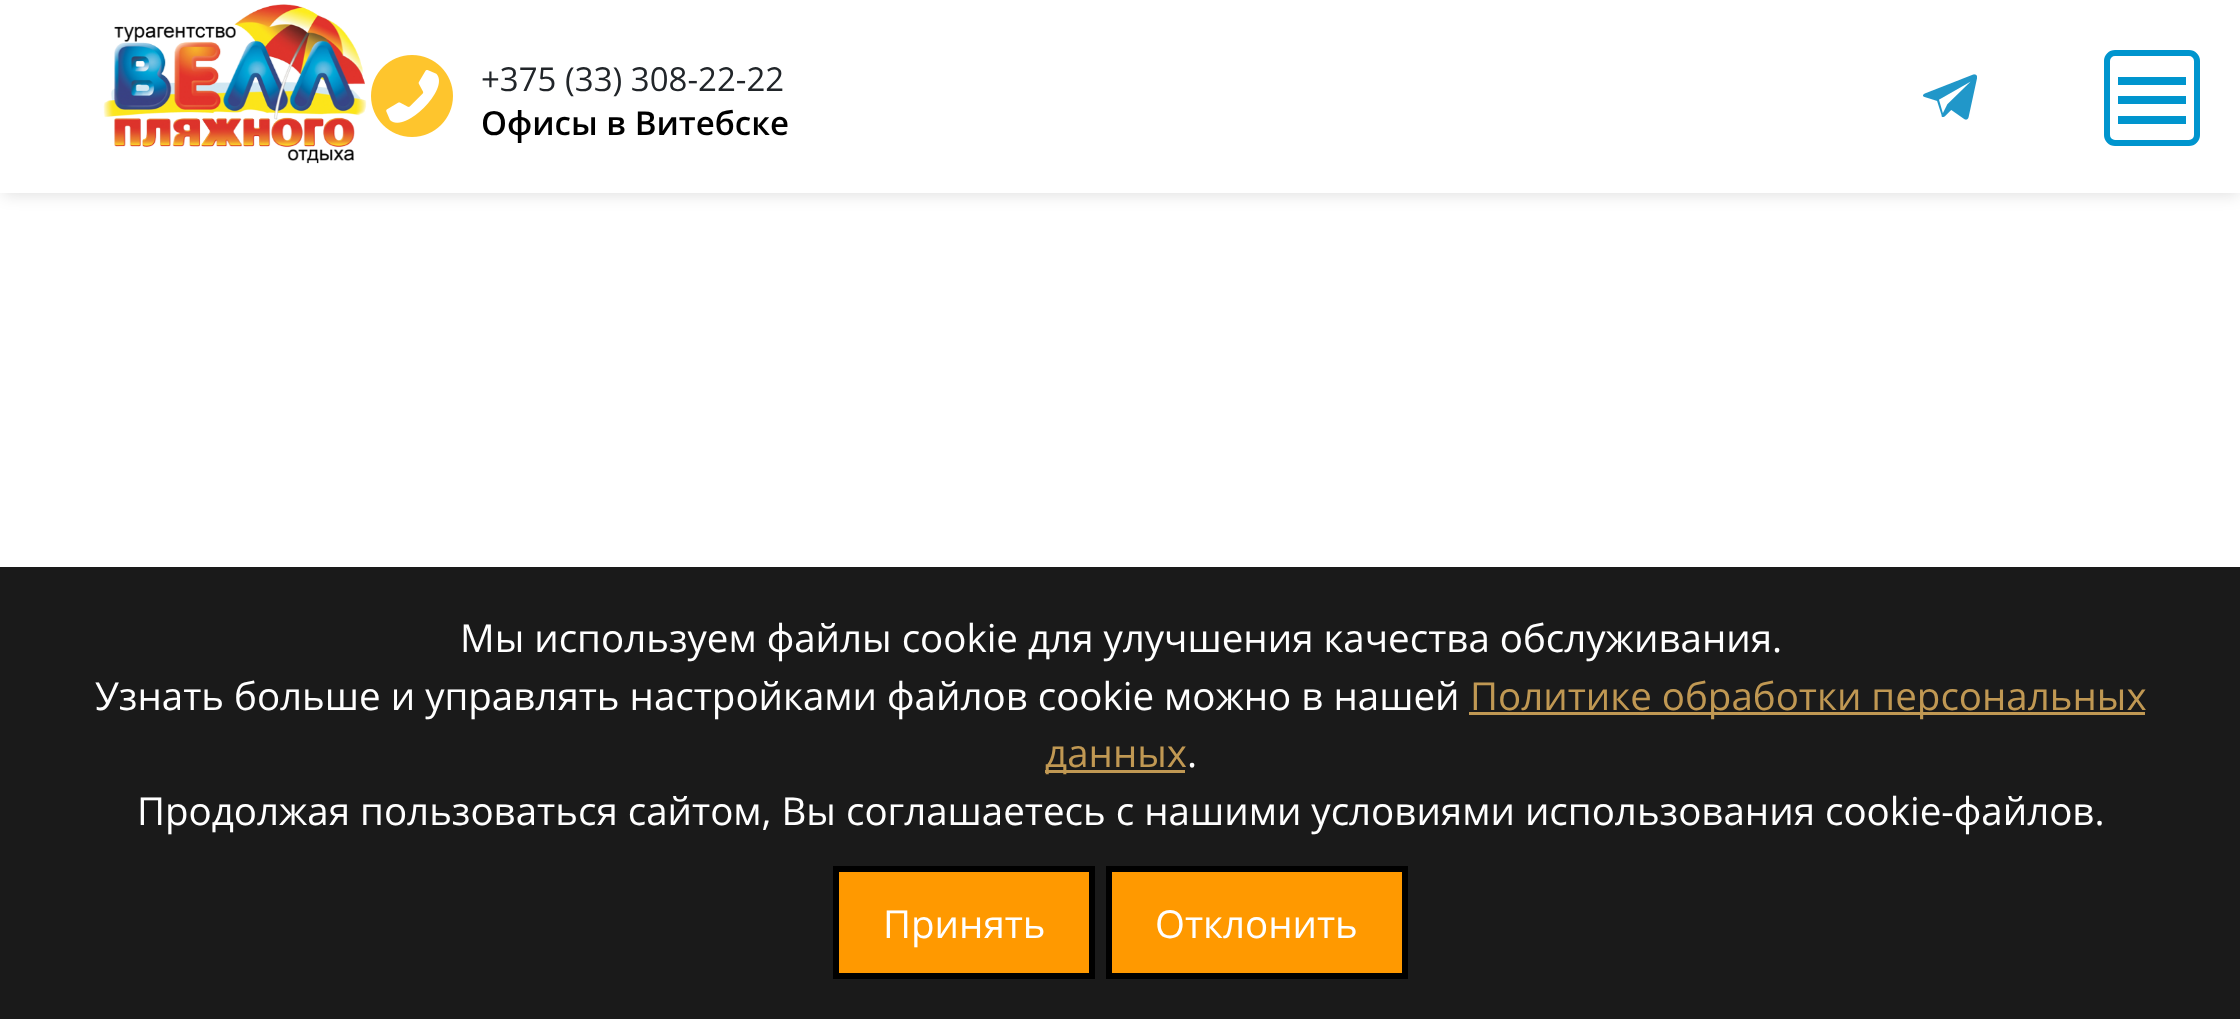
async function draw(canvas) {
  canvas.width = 2240
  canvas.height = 1019
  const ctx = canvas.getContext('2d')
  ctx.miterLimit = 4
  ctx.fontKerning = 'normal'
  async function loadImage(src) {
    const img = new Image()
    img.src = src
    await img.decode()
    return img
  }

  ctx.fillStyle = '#fff'
  ctx.fillRect(0, 0, 2240, 1019)
  ctx.fillStyle = '#0000001f'
  ctx.filter = 'blur(8px)'
  ctx.beginPath()
  ctx.rect(3, 8, 2236, 187)
  ctx.fill()
  ctx.filter = 'none'
  ctx.fillStyle = '#fff'
  ctx.fillRect(0, 0, 2240, 193)
  ctx.drawImage(await loadImage('image0.png'), 103, 4, 264, 160)
  ctx.drawImage(await loadImage('image1.png'), 371, 55, 82, 82)
  ctx.font = '33px Open Sans'
  ctx.fillStyle = '#212529'
  ctx.fillText('+375 (33) 308-22-22', 481, 91)
  ctx.font = '600 33px Open Sans'
  ctx.fillStyle = '#000'
  ctx.fillText('Офисы в Витебске', 481, 135)
  ctx.drawImage(await loadImage('image2.png'), 1923, 74, 54, 46)
  ctx.beginPath()
  ctx.roundRect(2107, 53, 90, 90, 8)
  ctx.strokeStyle = '#0095ce'
  ctx.lineWidth = 6
  ctx.stroke()
  ctx.fillStyle = '#0095ce'
  ctx.fillRect(2118, 77, 68, 8)
  ctx.fillRect(2118, 96, 68, 8)
  ctx.fillRect(2118, 116, 68, 8)
  ctx.fillStyle = '#1a1a1a'
  ctx.fillRect(0, 567, 2240, 452)
  ctx.font = '38.5px Open Sans'
  ctx.fillStyle = '#fff'
  ctx.fillText('Мы используем файлы cookie для улучшения качества обслуживания.', 460, 652)
  ctx.fillText('Узнать больше и управлять настройками файлов cookie можно в нашей', 95, 710)
  ctx.fillStyle = '#c09853'
  ctx.fillRect(1469, 712, 676, 3)
  ctx.fillText('Политике обработки персональных', 1470, 710)
  ctx.fillRect(1045, 770, 140, 3)
  ctx.fillText('данных', 1045, 767)
  ctx.fillStyle = '#fff'
  ctx.fillText('.', 1187, 767)
  ctx.fillText('Продолжая пользоваться сайтом, Вы соглашаетесь с нашими условиями использования cookie-файлов.', 137, 825)
  ctx.fillStyle = '#f90'
  ctx.beginPath()
  ctx.rect(836, 869, 256, 107)
  ctx.fill()
  ctx.strokeStyle = '#000'
  ctx.stroke()
  ctx.fillStyle = '#fff'
  ctx.fillText('Принять', 883, 938)
  ctx.fillStyle = '#f90'
  ctx.beginPath()
  ctx.rect(1109, 869, 296, 107)
  ctx.fill()
  ctx.stroke()
  ctx.fillStyle = '#fff'
  ctx.fillText('Отклонить', 1155, 938)
}

draw(document.querySelector('canvas'))
